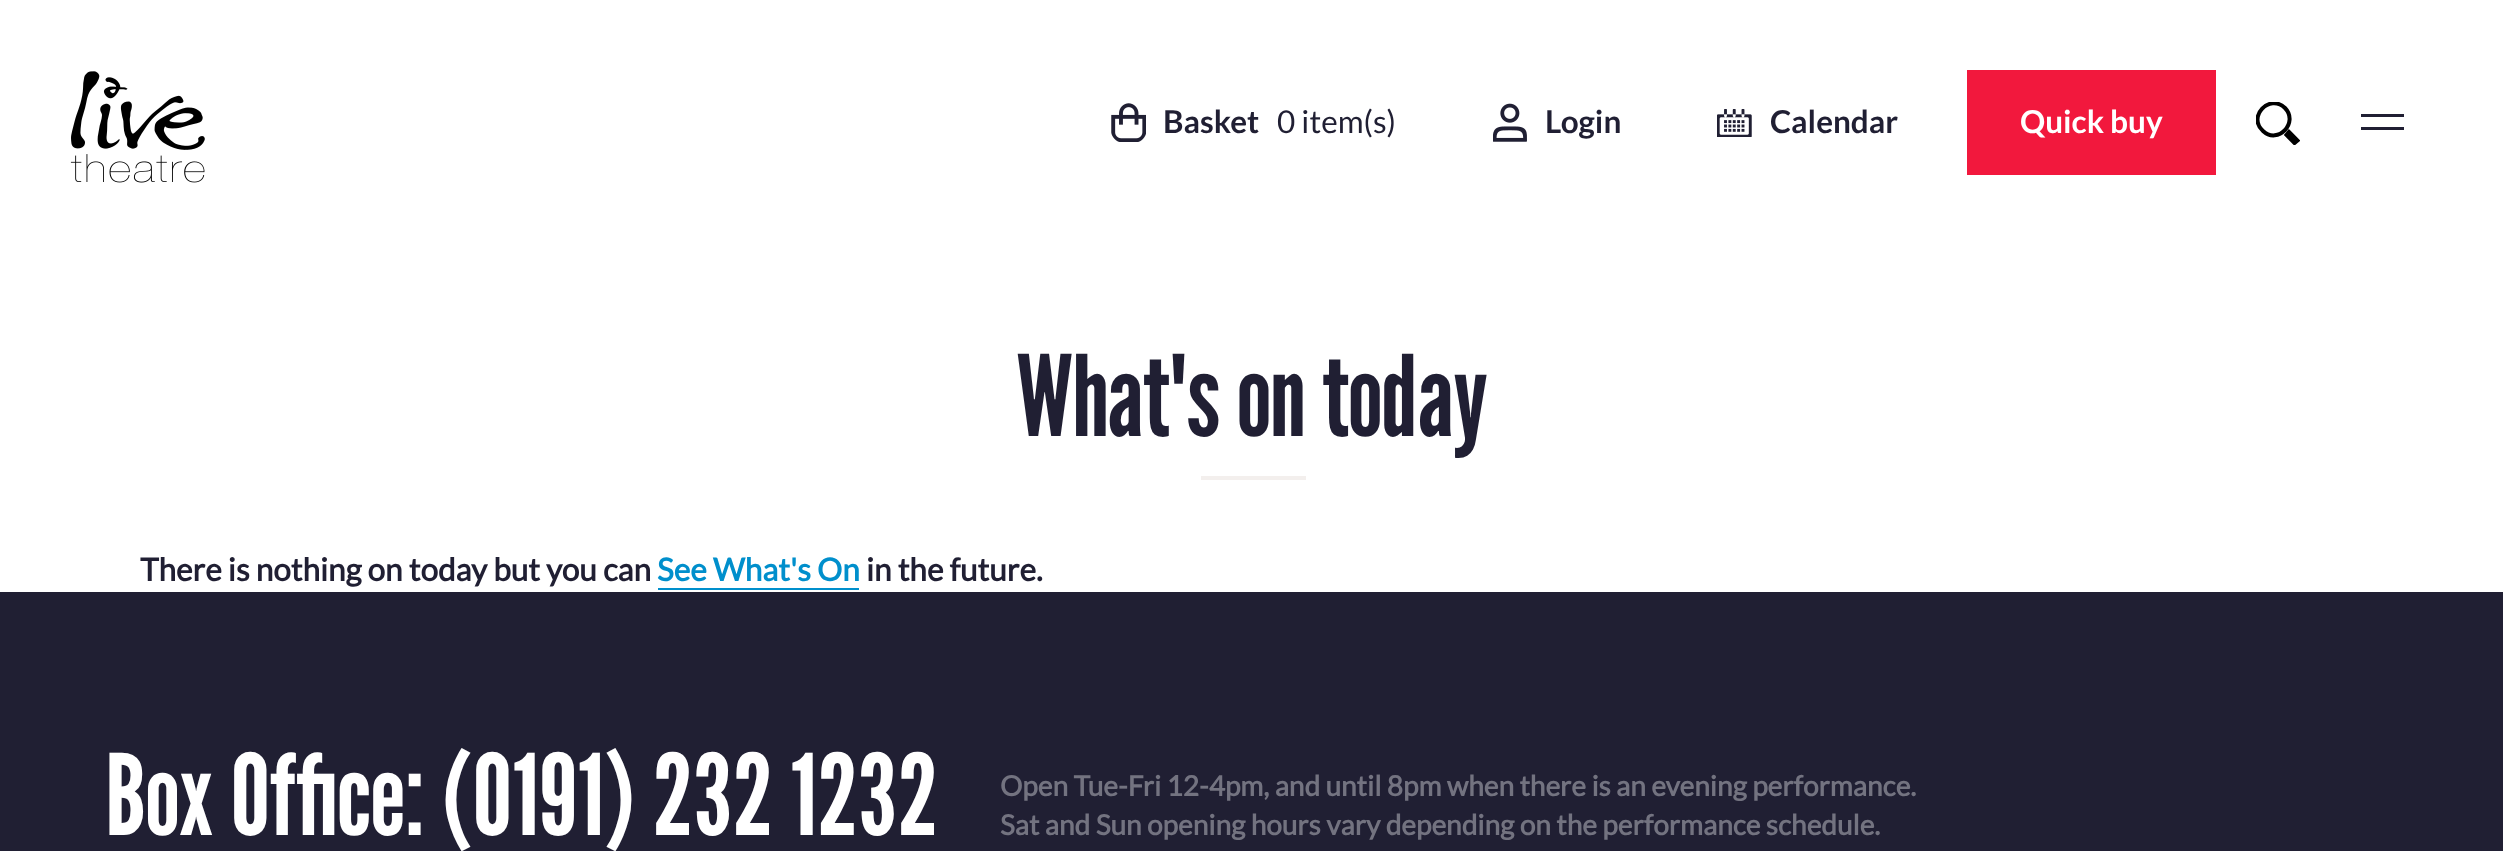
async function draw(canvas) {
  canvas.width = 2503
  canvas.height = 851
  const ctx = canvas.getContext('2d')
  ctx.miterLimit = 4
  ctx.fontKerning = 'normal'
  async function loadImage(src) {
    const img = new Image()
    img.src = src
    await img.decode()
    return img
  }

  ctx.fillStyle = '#fff'
  ctx.fillRect(0, 0, 2503, 851)
  ctx.drawImage(await loadImage('image0.png'), 70, 71, 135, 112)
  ctx.drawImage(await loadImage('image1.png'), 1111, 103, 35, 39)
  ctx.font = 'bold 31.5px "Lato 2"'
  ctx.fillStyle = '#201f33'
  ctx.fillText('Basket', 1163, 133)
  ctx.font = '31.5px Lato'
  ctx.fillText('0 item(s)', 1277, 133)
  ctx.drawImage(await loadImage('image2.png'), 1493, 103, 34, 39)
  ctx.font = 'bold 31.5px "Lato 2"'
  ctx.fillText('Login', 1545, 133)
  ctx.drawImage(await loadImage('image3.png'), 1717, 109, 35, 28)
  ctx.fillText('Calendar', 1770, 133)
  ctx.fillStyle = '#f2183d'
  ctx.fillRect(1967, 70, 249, 105)
  ctx.fillStyle = '#fff'
  ctx.fillText('Quick buy', 2020, 133)
  ctx.save()
  ctx.beginPath()
  ctx.rect(2256, 102, 44, 43)
  ctx.clip()
  ctx.beginPath()
  ctx.moveTo(2285, 108)
  ctx.bezierCurveTo(2299, 122.5, 2278, 145, 2263, 131)
  ctx.bezierCurveTo(2247, 117, 2269.5, 93, 2285, 108)
  ctx.closePath()
  ctx.moveTo(2289, 132)
  ctx.lineTo(2297.5, 140.5)
  ctx.lineTo(2294.5, 143)
  ctx.lineTo(2286.5, 135)
  ctx.closePath()
  ctx.strokeStyle = '#000'
  ctx.lineWidth = 4
  ctx.stroke()
  ctx.restore()
  ctx.fillStyle = '#201f33'
  ctx.beginPath()
  ctx.moveTo(2361, 130)
  ctx.lineTo(2361, 127)
  ctx.lineTo(2404, 127)
  ctx.lineTo(2404, 130)
  ctx.closePath()
  ctx.moveTo(2361, 117)
  ctx.lineTo(2361, 114)
  ctx.lineTo(2404, 114)
  ctx.lineTo(2404, 117)
  ctx.closePath()
  ctx.fill('evenodd')
  ctx.font = '112px League Gothic'
  ctx.fillText('What\'s on today', 1016, 436)
  ctx.fillStyle = '#f3efed'
  ctx.fillRect(1201, 476, 105, 4)
  ctx.font = 'bold 31.5px Lato'
  ctx.fillStyle = '#201f33'
  ctx.fillText('There is nothing on today but you can', 140, 581)
  ctx.fillStyle = '#008fcc'
  ctx.fillText('See What\'s On', 657, 581)
  ctx.fillRect(658, 588, 201, 2)
  ctx.fillStyle = '#201f33'
  ctx.fillText('in the future.', 866, 581)
  ctx.fillRect(0, 592, 2503, 259)
  ctx.font = '112px League Gothic'
  ctx.fillStyle = '#fff'
  ctx.fillText('Box Office: (0191) 232 1232', 105, 835)
  ctx.font = 'bold 28px Lato'
  ctx.fillStyle = '#737380'
  ctx.fillText('Open Tue-Fri 12-4pm, and until 8pm when there is an evening performance.', 1000, 796)
  ctx.fillText('Sat and Sun opening hours vary depending on the performance schedule.', 1000, 835)
}

draw(document.querySelector('canvas'))
